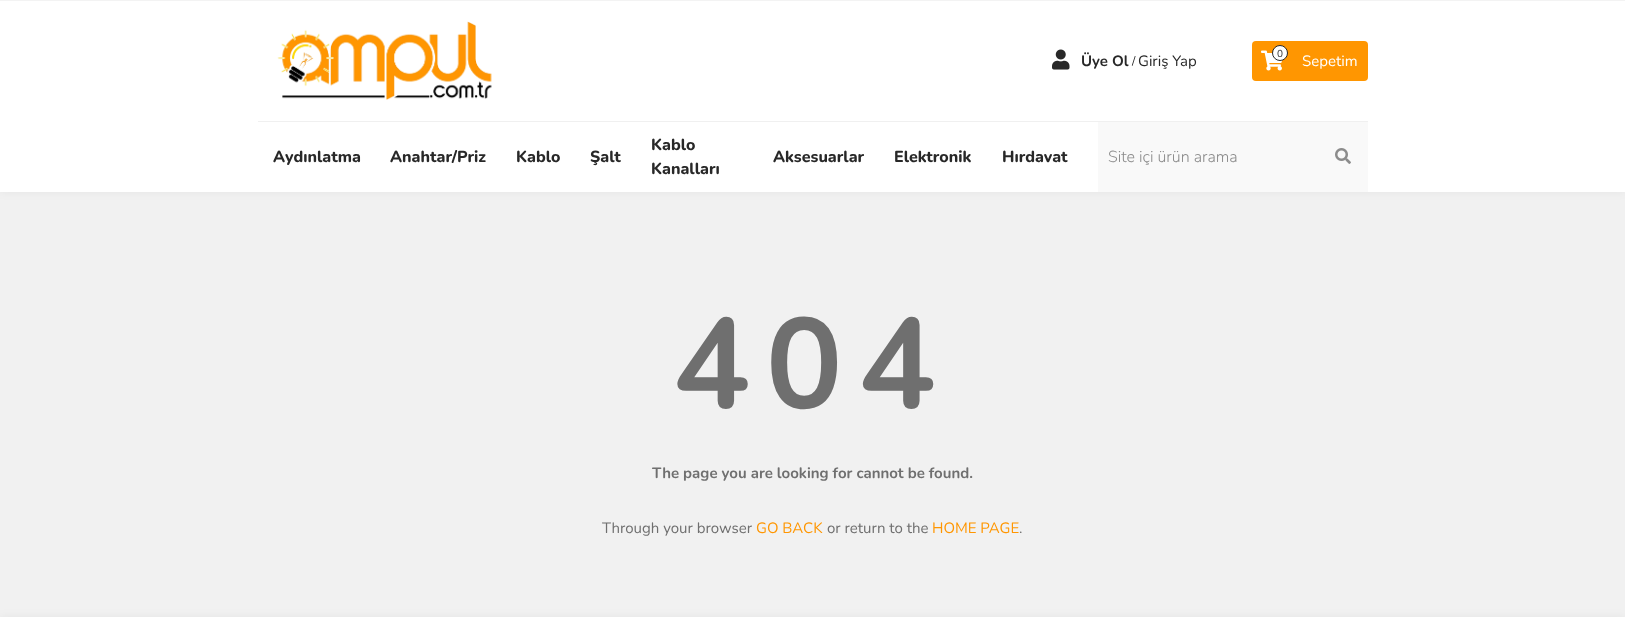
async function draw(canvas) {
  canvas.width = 1625
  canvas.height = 638
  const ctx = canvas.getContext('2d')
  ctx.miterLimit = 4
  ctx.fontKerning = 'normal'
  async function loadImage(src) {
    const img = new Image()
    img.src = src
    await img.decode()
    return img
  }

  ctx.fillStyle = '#f1f1f1'
  ctx.fillRect(0, 0, 1625, 638)
  ctx.fillStyle = '#0000000d'
  ctx.filter = 'blur(5px)'
  ctx.beginPath()
  ctx.rect(0, 0, 1625, 192)
  ctx.fill()
  ctx.filter = 'none'
  ctx.fillStyle = '#fff'
  ctx.fillRect(0, 1, 1625, 191)
  ctx.fillStyle = '#f3f3f3'
  ctx.fillRect(0, 0, 1625, 1)
  ctx.fillStyle = '#f0f0f0'
  ctx.fillRect(258, 121, 1110, 1)
  ctx.drawImage(await loadImage('image0.png'), 277, 21, 215, 79)
  ctx.drawImage(await loadImage('image1.png'), 1052, 49, 18, 21)
  ctx.font = 'bold 15px Nunito'
  ctx.fillStyle = '#282828'
  ctx.fillText('Üye Ol', 1081, 66)
  ctx.font = '12px Nunito'
  ctx.fillText('/', 1132, 65)
  ctx.font = '15px Nunito'
  ctx.fillText('Giriş Yap', 1138, 66)
  ctx.fillStyle = '#ff9601'
  ctx.beginPath()
  ctx.roundRect(1252, 41, 116, 40, 4)
  ctx.fill()
  ctx.drawImage(await loadImage('image2.png'), 1261, 50, 22, 21)
  ctx.fillStyle = '#fff'
  ctx.beginPath()
  ctx.arc(1280, 53, 7.5, 0, 2 * Math.PI)
  ctx.fill()
  ctx.strokeStyle = '#282828'
  ctx.stroke()
  ctx.font = '10px Nunito'
  ctx.fillStyle = '#282828'
  ctx.fillText('0', 1277, 57)
  ctx.font = '15px Nunito'
  ctx.fillStyle = '#fff'
  ctx.fillText('Sepetim', 1302, 66)
  ctx.font = '800 16px Nunito'
  ctx.fillStyle = '#282828'
  ctx.fillText('Aydınlatma', 273, 162)
  ctx.fillText('Anahtar/Priz', 390, 162)
  ctx.fillText('Kablo', 516, 162)
  ctx.fillText('Şalt', 590, 162)
  ctx.fillText('Kablo', 651, 150)
  ctx.fillText('Kanalları', 651, 174)
  ctx.fillText('Aksesuarlar', 773, 162)
  ctx.fillText('Elektronik', 894, 162)
  ctx.fillText('Hırdavat', 1002, 162)
  ctx.fillStyle = '#f9f9f9'
  ctx.fillRect(1098, 122, 270, 70)
  ctx.font = '300 16px Nunito'
  ctx.fillStyle = '#8c8c8c'
  ctx.fillText('Site içi ürün arama', 1108, 162)
  ctx.drawImage(await loadImage('image3.png'), 1335, 148, 16, 16)
  ctx.letterSpacing = '16px'
  ctx.font = 'bold 128px Nunito'
  ctx.fillStyle = '#6f6f6f'
  ctx.fillText('404', 673, 408)
  ctx.letterSpacing = '0px'
  ctx.font = 'bold 15px Nunito'
  ctx.fillText('The page you are looking for cannot be found.', 652, 478)
  ctx.font = '15px Nunito'
  ctx.fillText('Through your browser', 602, 533)
  ctx.fillStyle = '#ff9601'
  ctx.fillText('GO BACK', 756, 533)
  ctx.fillStyle = '#6f6f6f'
  ctx.fillText('or return to the', 827, 533)
  ctx.fillStyle = '#ff9601'
  ctx.fillText('HOME PAGE', 932, 533)
  ctx.fillStyle = '#6f6f6f'
  ctx.fillText('.', 1019, 533)
  ctx.fillStyle = '#0000000d'
  ctx.filter = 'blur(5px)'
  ctx.beginPath()
  ctx.rect(0, 617, 1625, 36)
  ctx.fill()
  ctx.filter = 'none'
  ctx.fillStyle = '#fff'
  ctx.fillRect(0, 617, 1625, 21)
}

draw(document.querySelector('canvas'))
